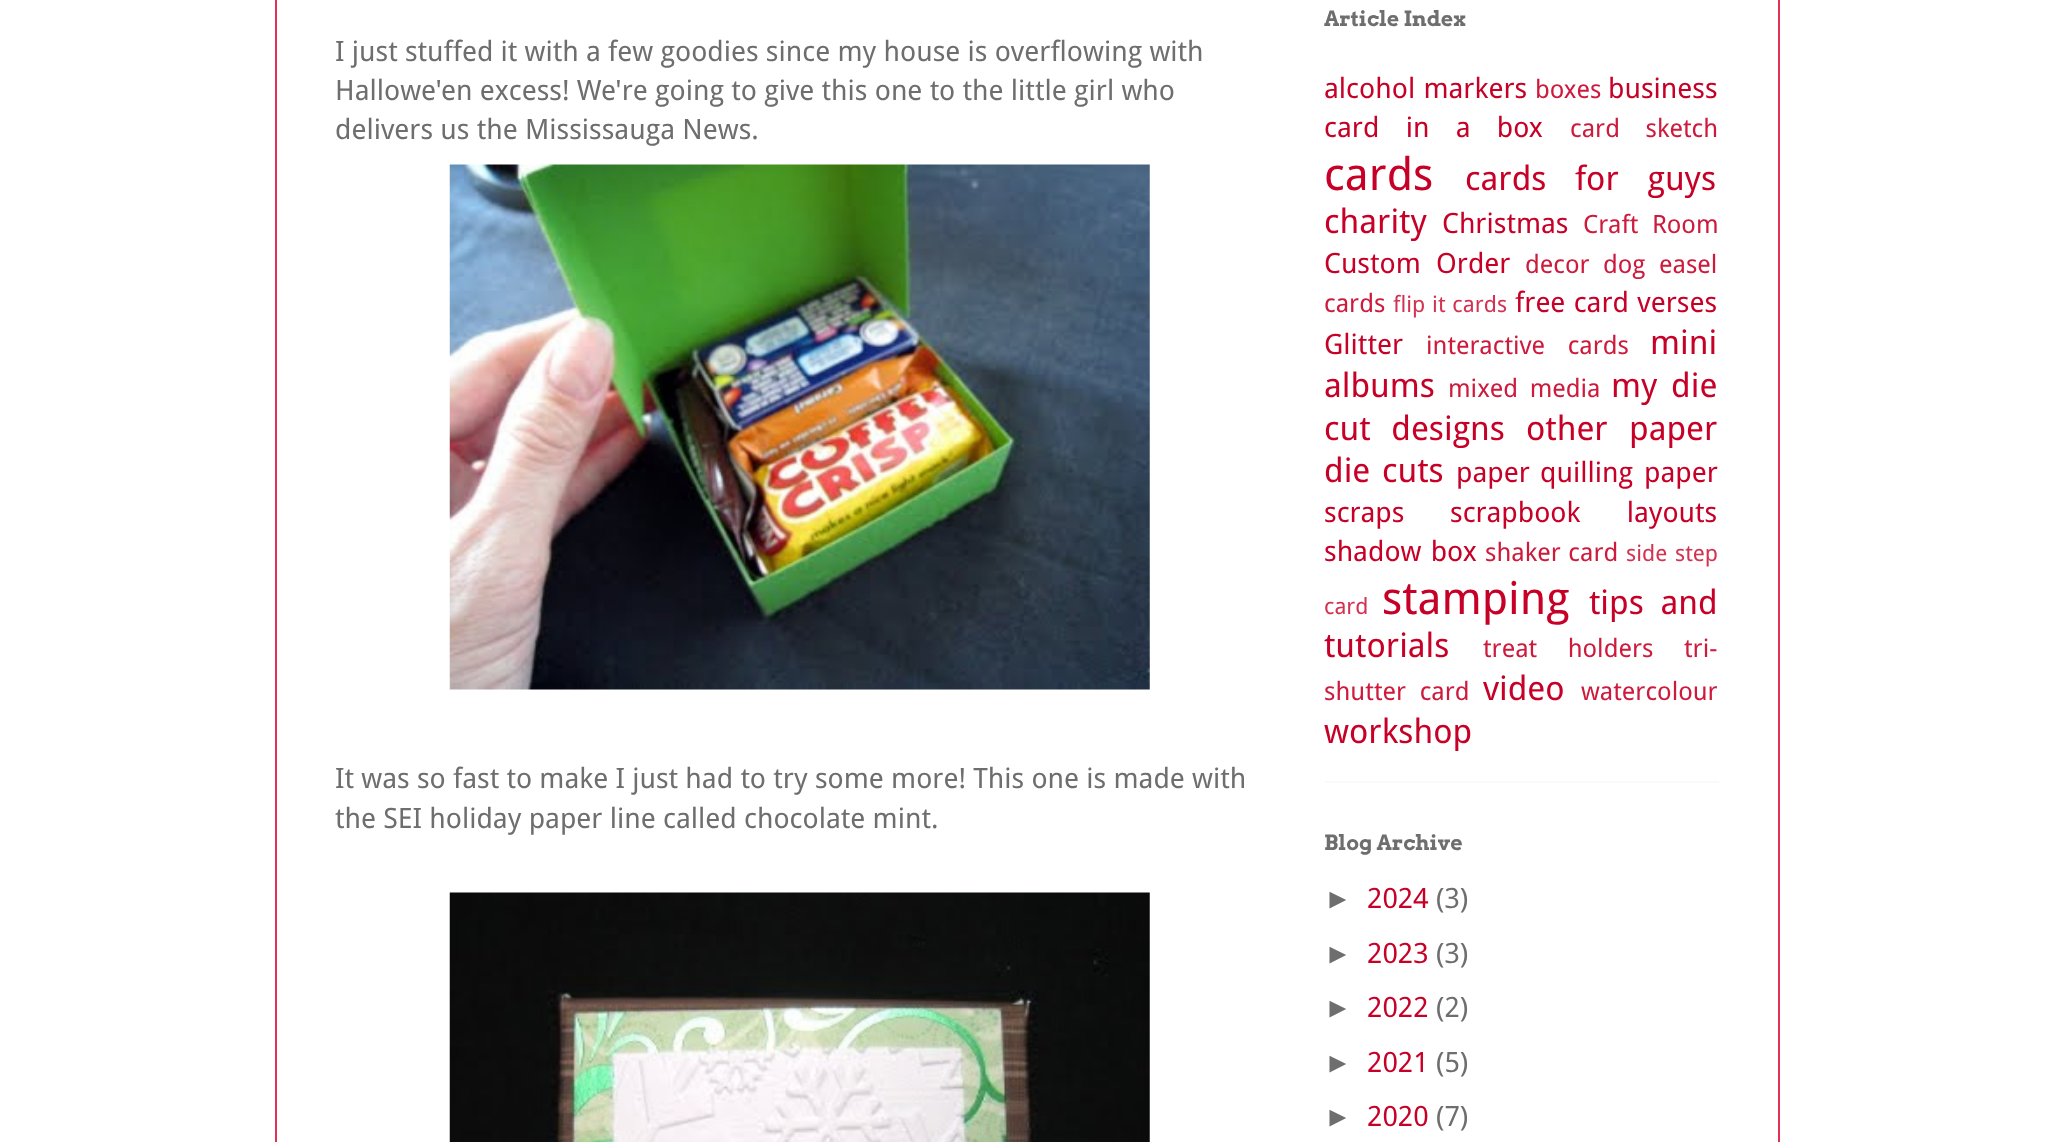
async function draw(canvas) {
  canvas.width = 2052
  canvas.height = 1142
  const ctx = canvas.getContext('2d')
  ctx.miterLimit = 4
  ctx.fontKerning = 'normal'
  async function loadImage(src) {
    const img = new Image()
    img.src = src
    await img.decode()
    return img
  }

  ctx.fillStyle = '#fff'
  ctx.fillRect(0, 0, 2052, 1142)
  ctx.fillStyle = '#e43054'
  ctx.fillRect(1778, 0, 2, 1142)
  ctx.fillRect(275, 0, 2, 1142)
  ctx.font = '28px Droid Sans'
  ctx.fillStyle = '#6e6e6e'
  ctx.fillText('I just stuffed it with a few goodies since my house is overflowing with', 335, 61)
  ctx.fillText('Hallowe\'en excess! We\'re going to give this one to the little girl who', 335, 100)
  ctx.fillText('delivers us the Mississauga News.', 335, 139)
  ctx.drawImage(await loadImage('image0.png'), 449, 164, 701, 526)
  ctx.fillText('It was so fast to make I just had to try some more! This one is made with', 335, 788)
  ctx.fillText('the SEI holiday paper line called chocolate mint.', 335, 828)
  ctx.drawImage(await loadImage('image1.png'), 449, 892, 701, 250)
  ctx.fillStyle = '#fafafa'
  ctx.fillRect(1325, 781, 394, 2)
  ctx.font = 'bold 21px Arvo'
  ctx.fillStyle = '#6e6e6e'
  ctx.fillText('Article Index', 1324, 26)
  ctx.wordSpacing = '1px'
  ctx.font = '28px Droid Sans'
  ctx.fillStyle = '#c70027'
  ctx.fillText('alcohol markers', 1324, 98)
  ctx.wordSpacing = '0px'
  ctx.font = '25.25px Droid Sans'
  ctx.fillStyle = '#cd1a3d'
  ctx.fillText('boxes', 1535, 98)
  ctx.font = '28px Droid Sans'
  ctx.fillStyle = '#c70027'
  ctx.fillText('business', 1608, 98)
  ctx.wordSpacing = '19px'
  ctx.fillText('card in a box', 1324, 137)
  ctx.font = '25.25px Droid Sans'
  ctx.fillStyle = '#cd1a3d'
  ctx.fillText('card sketch', 1570, 137)
  ctx.wordSpacing = '0px'
  ctx.font = '45px Droid Sans'
  ctx.fillStyle = '#c70027'
  ctx.fillText('cards', 1324, 190)
  ctx.wordSpacing = '20px'
  ctx.font = '33.5px Droid Sans'
  ctx.fillText('cards for guys', 1465, 190)
  ctx.wordSpacing = '0px'
  ctx.fillText('charity', 1324, 233)
  ctx.font = '28px Droid Sans'
  ctx.fillText('Christmas', 1442, 233)
  ctx.wordSpacing = '7px'
  ctx.font = '25.25px Droid Sans'
  ctx.fillStyle = '#cd1a3d'
  ctx.fillText('Craft Room', 1583, 233)
  ctx.wordSpacing = '8px'
  ctx.font = '28px Droid Sans'
  ctx.fillStyle = '#c70027'
  ctx.fillText('Custom Order', 1324, 273)
  ctx.wordSpacing = '0px'
  ctx.font = '25.25px Droid Sans'
  ctx.fillStyle = '#cd1a3d'
  ctx.fillText('decor', 1525, 273)
  ctx.fillText('dog', 1603, 273)
  ctx.fillText('easel', 1659, 273)
  ctx.fillText('cards', 1324, 312)
  ctx.wordSpacing = '1px'
  ctx.font = '22.5px Droid Sans'
  ctx.fillStyle = '#d23352'
  ctx.fillText('flip it cards', 1393, 312)
  ctx.font = '28px Droid Sans'
  ctx.fillStyle = '#c70027'
  ctx.fillText('free card verses', 1515, 312)
  ctx.wordSpacing = '0px'
  ctx.fillText('Glitter', 1324, 354)
  ctx.wordSpacing = '16px'
  ctx.font = '25.25px Droid Sans'
  ctx.fillStyle = '#cd1a3d'
  ctx.fillText('interactive cards', 1426, 354)
  ctx.wordSpacing = '0px'
  ctx.font = '33.5px Droid Sans'
  ctx.fillStyle = '#c70027'
  ctx.fillText('mini', 1650, 354)
  ctx.fillText('albums', 1324, 397)
  ctx.wordSpacing = '5px'
  ctx.font = '25.25px Droid Sans'
  ctx.fillStyle = '#cd1a3d'
  ctx.fillText('mixed media', 1448, 397)
  ctx.font = '33.5px Droid Sans'
  ctx.fillStyle = '#c70027'
  ctx.fillText('my die', 1611, 397)
  ctx.wordSpacing = '12px'
  ctx.fillText('cut designs', 1324, 440)
  ctx.wordSpacing = '0px'
  ctx.fillText('other', 1526, 440)
  ctx.fillText('paper', 1629, 440)
  ctx.wordSpacing = '3px'
  ctx.fillText('die cuts', 1324, 482)
  ctx.font = '28px Droid Sans'
  ctx.fillText('paper quilling', 1456, 482)
  ctx.wordSpacing = '0px'
  ctx.fillText('paper', 1644, 482)
  ctx.fillText('scraps', 1324, 522)
  ctx.wordSpacing = '39px'
  ctx.fillText('scrapbook layouts', 1450, 522)
  ctx.wordSpacing = '2px'
  ctx.fillText('shadow box', 1324, 561)
  ctx.wordSpacing = '1px'
  ctx.font = '25.25px Droid Sans'
  ctx.fillStyle = '#cd1a3d'
  ctx.fillText('shaker card', 1485, 561)
  ctx.wordSpacing = '2px'
  ctx.font = '22.5px Droid Sans'
  ctx.fillStyle = '#d23352'
  ctx.fillText('side step', 1626, 561)
  ctx.wordSpacing = '0px'
  ctx.fillText('card', 1324, 614)
  ctx.font = '45px Droid Sans'
  ctx.fillStyle = '#c70027'
  ctx.fillText('stamping', 1382, 614)
  ctx.wordSpacing = '8px'
  ctx.font = '33.5px Droid Sans'
  ctx.fillText('tips and', 1589, 614)
  ctx.wordSpacing = '0px'
  ctx.fillText('tutorials', 1324, 657)
  ctx.wordSpacing = '24px'
  ctx.font = '25.25px Droid Sans'
  ctx.fillStyle = '#cd1a3d'
  ctx.fillText('treat holders', 1483, 657)
  ctx.wordSpacing = '0px'
  ctx.fillText('tri-', 1684, 657)
  ctx.wordSpacing = '7px'
  ctx.fillText('shutter card', 1324, 700)
  ctx.wordSpacing = '0px'
  ctx.font = '33.5px Droid Sans'
  ctx.fillStyle = '#c70027'
  ctx.fillText('video', 1483, 700)
  ctx.font = '25.25px Droid Sans'
  ctx.fillStyle = '#cd1a3d'
  ctx.fillText('watercolour', 1581, 700)
  ctx.font = '33.5px Droid Sans'
  ctx.fillStyle = '#c70027'
  ctx.fillText('workshop', 1324, 743)
  ctx.font = 'bold 21px Arvo'
  ctx.fillStyle = '#6e6e6e'
  ctx.fillText('Blog Archive', 1324, 850)
  ctx.font = '28px Liberation Sans'
  ctx.fillText('►', 1324, 908)
  ctx.font = '28px Droid Sans'
  ctx.fillStyle = '#c70027'
  ctx.fillText('2024', 1367, 908)
  ctx.fillStyle = '#6e6e6e'
  ctx.fillText('(3)', 1436, 908)
  ctx.font = '28px Liberation Sans'
  ctx.fillText('►', 1324, 963)
  ctx.font = '28px Droid Sans'
  ctx.fillStyle = '#c70027'
  ctx.fillText('2023', 1367, 963)
  ctx.fillStyle = '#6e6e6e'
  ctx.fillText('(3)', 1436, 963)
  ctx.font = '28px Liberation Sans'
  ctx.fillText('►', 1324, 1017)
  ctx.font = '28px Droid Sans'
  ctx.fillStyle = '#c70027'
  ctx.fillText('2022', 1367, 1017)
  ctx.fillStyle = '#6e6e6e'
  ctx.fillText('(2)', 1436, 1017)
  ctx.font = '28px Liberation Sans'
  ctx.fillText('►', 1324, 1072)
  ctx.font = '28px Droid Sans'
  ctx.fillStyle = '#c70027'
  ctx.fillText('2021', 1367, 1072)
  ctx.fillStyle = '#6e6e6e'
  ctx.fillText('(5)', 1436, 1072)
  ctx.font = '28px Liberation Sans'
  ctx.fillText('►', 1324, 1126)
  ctx.font = '28px Droid Sans'
  ctx.fillStyle = '#c70027'
  ctx.fillText('2020', 1367, 1126)
  ctx.fillStyle = '#6e6e6e'
  ctx.fillText('(7)', 1436, 1126)
}

draw(document.querySelector('canvas'))
